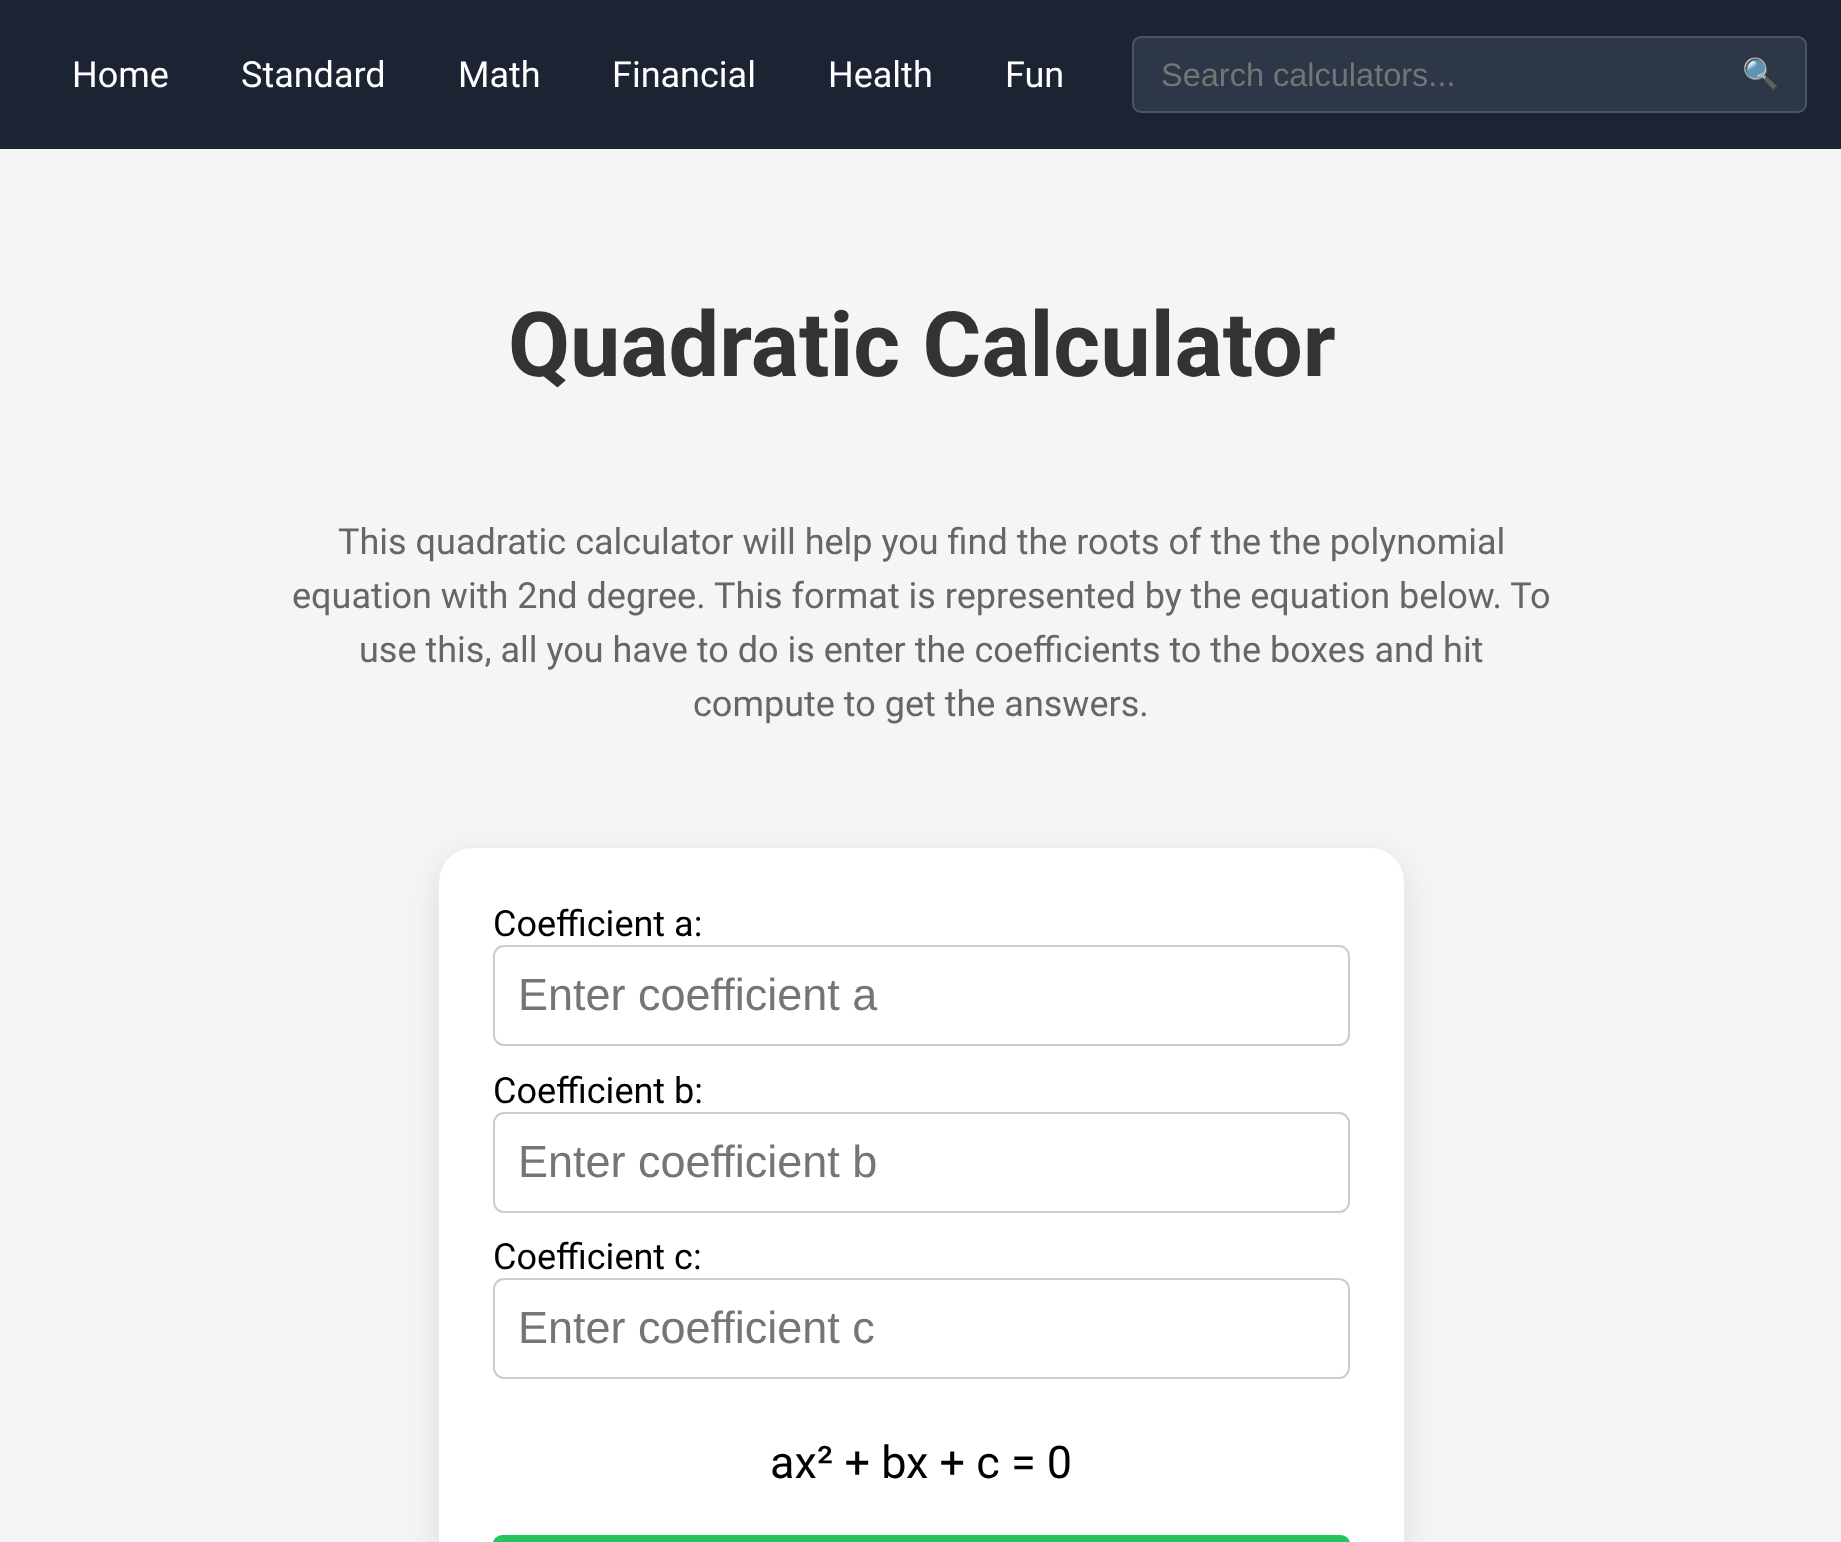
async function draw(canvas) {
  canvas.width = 1841
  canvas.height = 1542
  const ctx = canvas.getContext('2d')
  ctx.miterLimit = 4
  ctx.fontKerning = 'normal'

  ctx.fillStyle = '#f5f5f5'
  ctx.fillRect(0, 0, 1841, 1542)
  ctx.fillStyle = '#1c2333'
  ctx.fillRect(0, 0, 1841, 149)
  ctx.font = '36px Roboto'
  ctx.fillStyle = '#fff'
  ctx.fillText('Home', 72, 87)
  ctx.fillText('Standard', 241, 87)
  ctx.fillText('Math', 458, 87)
  ctx.fillText('Financial', 612, 87)
  ctx.fillText('Health', 828, 87)
  ctx.fillText('Fun', 1005, 87)
  ctx.fillStyle = '#2d3748'
  ctx.beginPath()
  ctx.roundRect(1133, 37, 673, 75, 8)
  ctx.fill()
  ctx.strokeStyle = '#4a5568'
  ctx.lineWidth = 2
  ctx.stroke()
  ctx.font = '32.5px Liberation Sans'
  ctx.fillStyle = '#757575'
  ctx.fillText('Search calculators...', 1161, 86)
  ctx.font = '30px Noto Color Emoji'
  ctx.fillStyle = '#a0aec0'
  ctx.fillText('🔍', 1742, 84)
  ctx.font = 'bold 90px Roboto'
  ctx.fillStyle = '#333'
  ctx.fillText('Quadratic Calculator', 508, 376)
  ctx.font = '36px Roboto'
  ctx.fillStyle = '#666'
  ctx.fillText('This quadratic calculator will help you find the roots of the the polynomial', 338, 554)
  ctx.fillText('equation with 2nd degree. This format is represented by the equation below. To', 292, 608)
  ctx.fillText('use this, all you have to do is enter the coefficients to the boxes and hit', 359, 662)
  ctx.fillText('compute to get the answers.', 693, 716)
  ctx.fillStyle = '#0000001a'
  ctx.filter = 'blur(17px)'
  ctx.beginPath()
  ctx.roundRect(439, 857, 965, 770, 34)
  ctx.fill()
  ctx.filter = 'none'
  ctx.fillStyle = '#fff'
  ctx.beginPath()
  ctx.roundRect(439, 848, 965, 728, 34)
  ctx.fill()
  ctx.fillStyle = '#000'
  ctx.fillText('Coefficient a:', 493, 936)
  ctx.beginPath()
  ctx.roundRect(494, 946, 855, 99, 10)
  ctx.strokeStyle = '#ccc'
  ctx.stroke()
  ctx.font = '45px Liberation Sans'
  ctx.fillStyle = '#757575'
  ctx.fillText('Enter coefficient a', 518, 1010)
  ctx.font = '36px Roboto'
  ctx.fillStyle = '#000'
  ctx.fillText('Coefficient b:', 493, 1103)
  ctx.beginPath()
  ctx.roundRect(494, 1113, 855, 99, 10)
  ctx.stroke()
  ctx.font = '45px Liberation Sans'
  ctx.fillStyle = '#757575'
  ctx.fillText('Enter coefficient b', 518, 1177)
  ctx.font = '36px Roboto'
  ctx.fillStyle = '#000'
  ctx.fillText('Coefficient c:', 493, 1269)
  ctx.beginPath()
  ctx.roundRect(494, 1279, 855, 99, 10)
  ctx.stroke()
  ctx.font = '45px Liberation Sans'
  ctx.fillStyle = '#757575'
  ctx.fillText('Enter coefficient c', 518, 1343)
  ctx.font = '45px Roboto'
  ctx.fillStyle = '#000'
  ctx.fillText('ax² + b', 770, 1478)
  ctx.fillText('x + c = 0', 906, 1478)
  ctx.fillStyle = '#22c55e'
  ctx.beginPath()
  ctx.roundRect(493, 1535, 857, 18, 11)
  ctx.fill()
}

draw(document.querySelector('canvas'))
